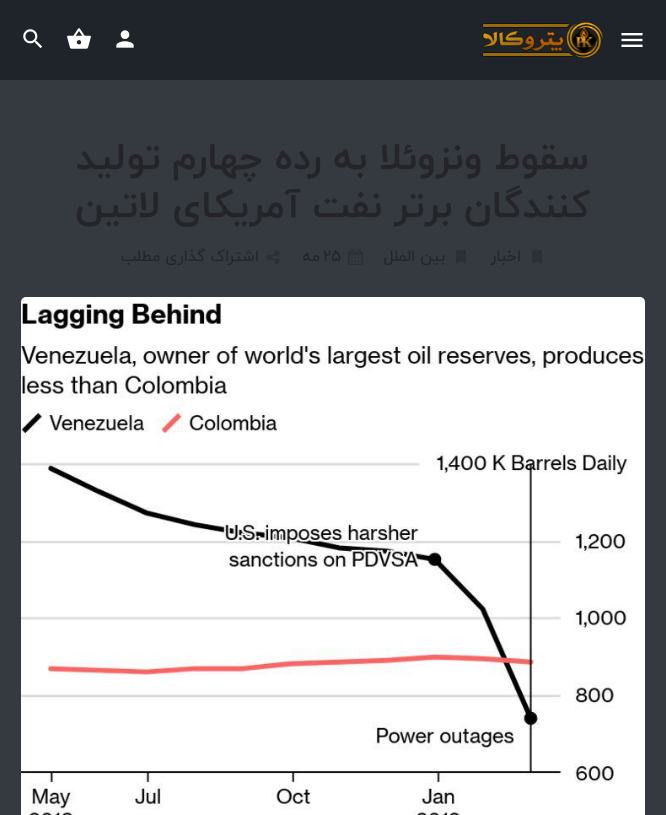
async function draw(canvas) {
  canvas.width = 666
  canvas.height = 815
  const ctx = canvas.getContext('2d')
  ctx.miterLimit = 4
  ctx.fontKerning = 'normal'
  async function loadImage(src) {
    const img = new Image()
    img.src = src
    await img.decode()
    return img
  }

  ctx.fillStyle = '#343a40'
  ctx.fillRect(0, 0, 666, 815)
  ctx.fillStyle = '#1e242a'
  ctx.fillRect(0, 0, 666, 80)
  ctx.drawImage(await loadImage('image0.png'), 621, 33, 22, 14)
  ctx.drawImage(await loadImage('image1.png'), 482, 22, 122, 36)
  ctx.drawImage(await loadImage('image2.png'), 116, 30, 18, 18)
  ctx.drawImage(await loadImage('image3.png'), 67, 28, 24, 21)
  ctx.drawImage(await loadImage('image4.png'), 23, 29, 20, 20)
  ctx.direction = 'rtl'
  ctx.font = 'bold 38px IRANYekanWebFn'
  ctx.fillStyle = '#242429'
  ctx.fillText('سقوط ونزوئلا به رده چهارم تولید', 589, 169)
  ctx.fillText('کنندگان برتر نفت آمریکای لاتین', 590, 217)
  ctx.drawImage(await loadImage('image5.png'), 532, 250, 10, 14)
  ctx.font = '16px IRANYekanWebFn'
  ctx.fillText('اخبار', 521, 261)
  ctx.drawImage(await loadImage('image5.png'), 456, 250, 10, 14)
  ctx.fillText('بین الملل', 445, 261)
  ctx.drawImage(await loadImage('image6.png'), 348, 249, 15, 16)
  ctx.direction = 'ltr'
  ctx.fillText('25', 323, 261)
  ctx.direction = 'rtl'
  ctx.fillText('مه', 320, 261)
  ctx.drawImage(await loadImage('image7.png'), 266, 250, 14, 14)
  ctx.fillText('اشتراک گذاری مطلب', 259, 261)
  ctx.drawImage(await loadImage('image8.png'), 21, 297, 624, 518)
}

draw(document.querySelector('canvas'))
